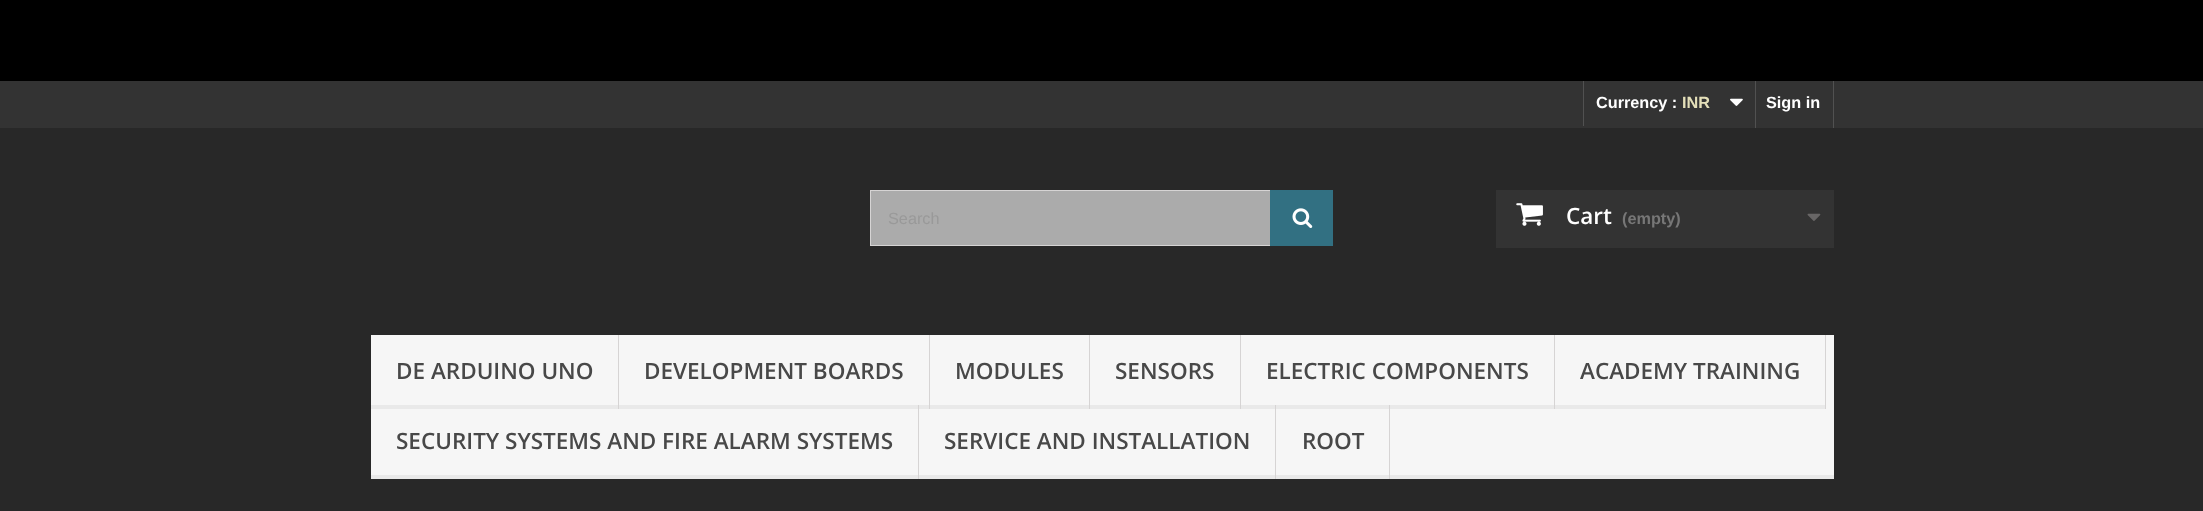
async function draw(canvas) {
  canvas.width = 2203
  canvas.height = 511
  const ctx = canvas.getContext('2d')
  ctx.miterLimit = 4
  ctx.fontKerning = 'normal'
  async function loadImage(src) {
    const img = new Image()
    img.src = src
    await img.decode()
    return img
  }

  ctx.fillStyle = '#282828'
  ctx.fillRect(0, 0, 2203, 511)
  ctx.fillStyle = '#000'
  ctx.fillRect(0, 0, 2203, 81)
  ctx.fillStyle = '#333'
  ctx.fillRect(0, 81, 2203, 47)
  ctx.fillStyle = '#515151'
  ctx.fillRect(1583, 81, 1, 45)
  ctx.font = 'bold 16.25px Liberation Sans'
  ctx.fillStyle = '#fff'
  ctx.fillText('Currency :', 1596, 108)
  ctx.fillStyle = '#e4dfb9'
  ctx.fillText('INR', 1682, 108)
  ctx.drawImage(await loadImage('image0.png'), 1730, 98, 13, 8)
  ctx.fillStyle = '#515151'
  ctx.fillRect(1833, 81, 1, 47)
  ctx.fillRect(1755, 81, 1, 47)
  ctx.fillStyle = '#fff'
  ctx.fillText('Sign in', 1766, 108)
  ctx.fillStyle = '#ababab'
  ctx.fillRect(871, 191, 399, 54)
  ctx.strokeStyle = '#d6d4d4'
  ctx.strokeRect(870.5, 190.5, 462, 55)
  ctx.font = '16.25px Liberation Sans'
  ctx.fillStyle = '#999'
  ctx.fillText('Search', 888, 224)
  ctx.fillStyle = '#327082'
  ctx.fillRect(1270, 190, 63, 56)
  ctx.drawImage(await loadImage('image1.png'), 1292, 208, 21, 20)
  ctx.fillStyle = '#333'
  ctx.fillRect(1496, 190, 338, 58)
  ctx.drawImage(await loadImage('image2.png'), 1516, 203, 27, 23)
  ctx.font = '600 22.5px Open Sans'
  ctx.fillStyle = '#fff'
  ctx.fillText('Cart', 1566, 224)
  ctx.font = 'bold 16.25px Liberation Sans'
  ctx.fillStyle = '#777'
  ctx.fillText('(empty)', 1622, 224)
  ctx.drawImage(await loadImage('image3.png'), 1807, 213, 14, 8)
  ctx.fillStyle = '#f6f6f6'
  ctx.fillRect(371, 335, 1463, 140)
  ctx.fillStyle = '#e9e9e9'
  ctx.fillRect(371, 475, 1463, 4)
  ctx.fillStyle = '#d6d4d4'
  ctx.fillRect(618, 335, 1, 74)
  ctx.fillStyle = '#e9e9e9'
  ctx.fillRect(371, 405, 247, 4)
  ctx.font = '600 22.5px Open Sans'
  ctx.fillStyle = '#484848'
  ctx.fillText('DE ARDUINO UNO', 396, 379)
  ctx.fillStyle = '#d6d4d4'
  ctx.fillRect(929, 335, 1, 74)
  ctx.fillStyle = '#e9e9e9'
  ctx.fillRect(619, 405, 310, 4)
  ctx.fillStyle = '#484848'
  ctx.fillText('DEVELOPMENT BOARDS', 644, 379)
  ctx.fillStyle = '#d6d4d4'
  ctx.fillRect(1089, 335, 1, 74)
  ctx.fillStyle = '#e9e9e9'
  ctx.fillRect(930, 405, 159, 4)
  ctx.fillStyle = '#484848'
  ctx.fillText('MODULES', 955, 379)
  ctx.fillStyle = '#d6d4d4'
  ctx.fillRect(1240, 335, 1, 74)
  ctx.fillStyle = '#e9e9e9'
  ctx.fillRect(1090, 405, 150, 4)
  ctx.fillStyle = '#484848'
  ctx.fillText('SENSORS', 1115, 379)
  ctx.fillStyle = '#d6d4d4'
  ctx.fillRect(1554, 335, 1, 74)
  ctx.fillStyle = '#e9e9e9'
  ctx.fillRect(1241, 405, 313, 4)
  ctx.fillStyle = '#484848'
  ctx.fillText('ELECTRIC COMPONENTS', 1266, 379)
  ctx.fillStyle = '#d6d4d4'
  ctx.fillRect(1825, 335, 1, 74)
  ctx.fillStyle = '#e9e9e9'
  ctx.fillRect(1555, 405, 270, 4)
  ctx.fillStyle = '#484848'
  ctx.fillText('ACADEMY TRAINING', 1580, 379)
  ctx.fillStyle = '#d6d4d4'
  ctx.fillRect(918, 405, 1, 74)
  ctx.fillStyle = '#484848'
  ctx.fillText('SECURITY SYSTEMS AND FIRE ALARM SYSTEMS', 396, 449)
  ctx.fillStyle = '#d6d4d4'
  ctx.fillRect(1275, 405, 1, 74)
  ctx.fillStyle = '#484848'
  ctx.fillText('SERVICE AND INSTALLATION', 944, 449)
  ctx.fillStyle = '#d6d4d4'
  ctx.fillRect(1389, 405, 1, 74)
  ctx.fillStyle = '#484848'
  ctx.fillText('ROOT', 1302, 449)
}

draw(document.querySelector('canvas'))
